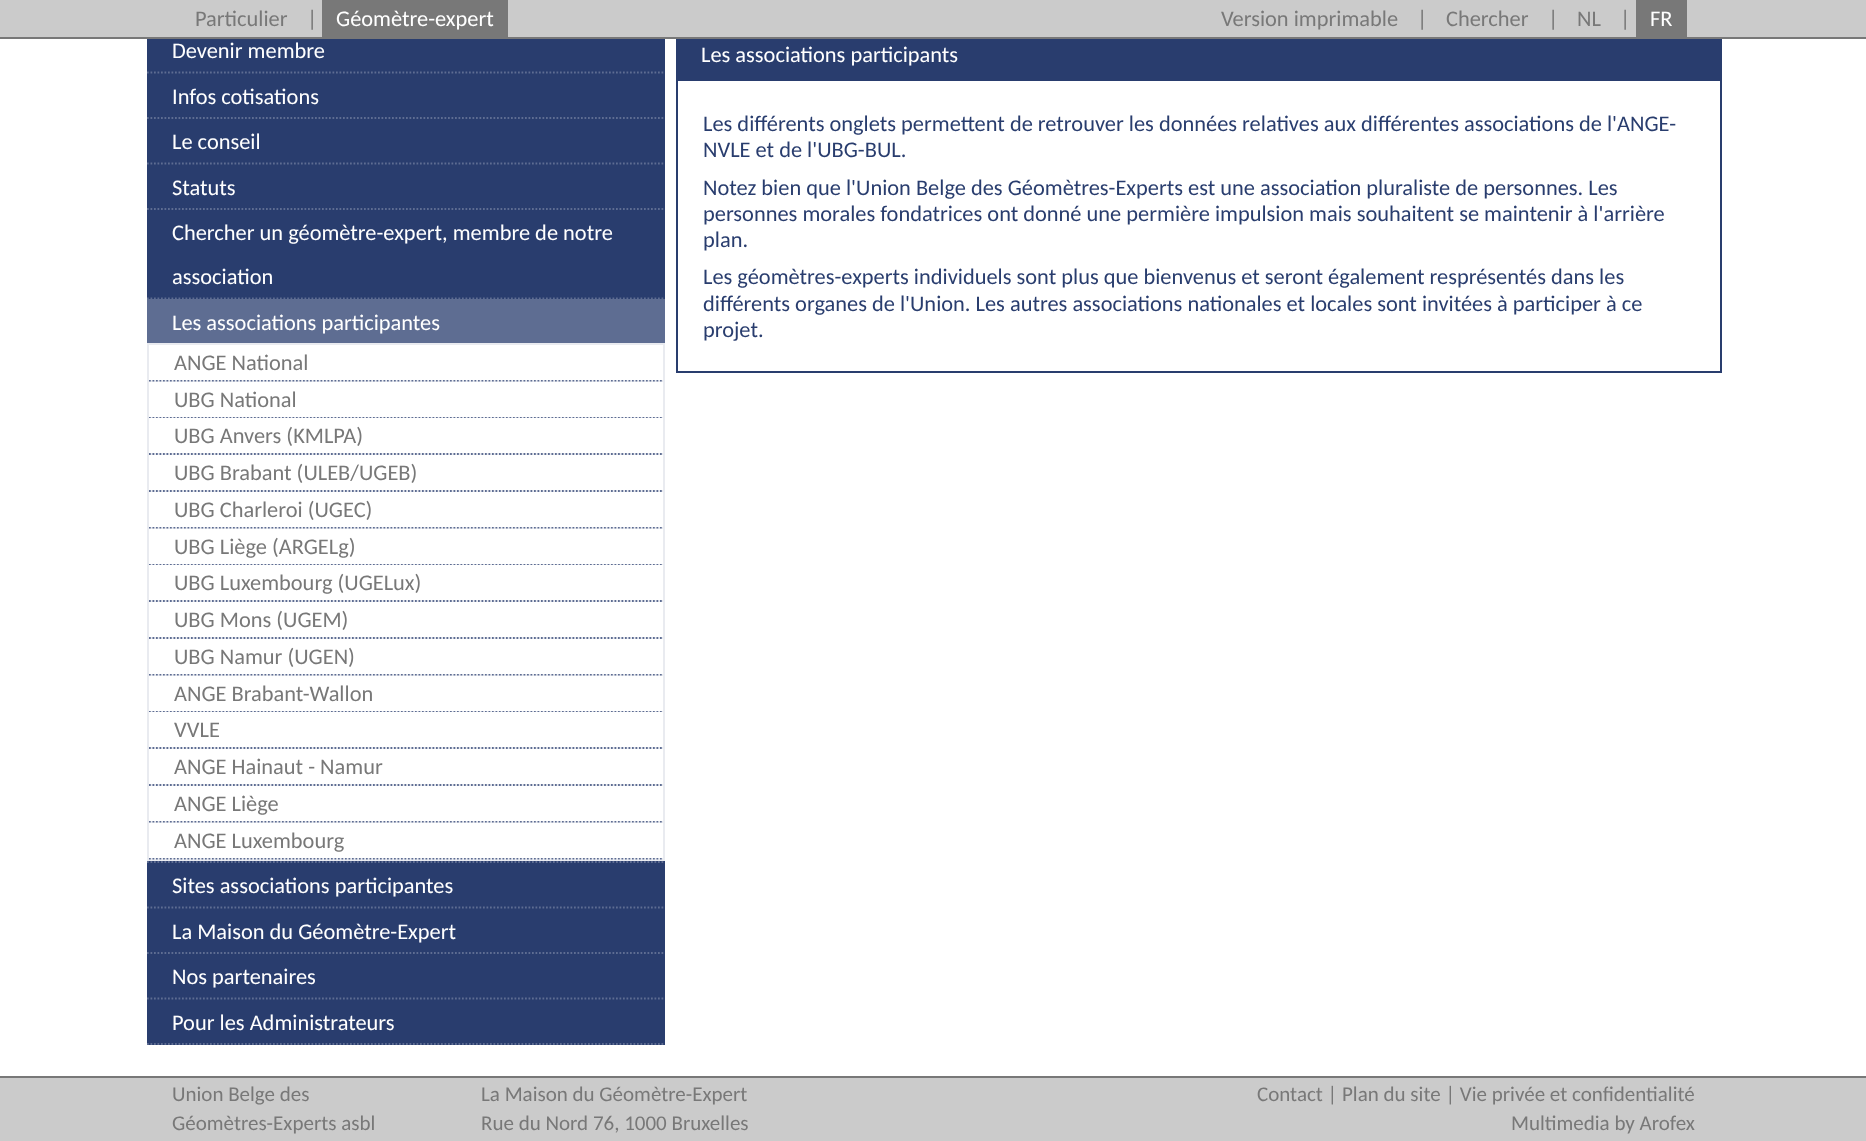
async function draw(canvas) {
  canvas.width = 1866
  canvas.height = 1141
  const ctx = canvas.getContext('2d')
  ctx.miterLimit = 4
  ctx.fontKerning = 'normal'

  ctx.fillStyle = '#fff'
  ctx.fillRect(0, 0, 1866, 1141)
  ctx.fillStyle = '#cbcbcb'
  ctx.fillRect(0, 0, 1866, 37)
  ctx.fillStyle = '#787878'
  ctx.fillRect(0, 37, 1866, 2)
  ctx.font = '22.4px Carlito'
  ctx.fillText('Particulier', 195, 26)
  ctx.fillText('|', 307, 26)
  ctx.fillRect(322, 0, 186, 37)
  ctx.fillStyle = '#fff'
  ctx.fillText('Géomètre-expert', 336, 26)
  ctx.fillStyle = '#787878'
  ctx.fillText('Version imprimable', 1221, 26)
  ctx.fillText('|', 1417, 26)
  ctx.fillText('Chercher', 1446, 26)
  ctx.fillText('|', 1548, 26)
  ctx.fillText('NL', 1577, 26)
  ctx.fillText('|', 1620, 26)
  ctx.fillRect(1636, 0, 51, 37)
  ctx.fillStyle = '#fff'
  ctx.fillText('FR', 1650, 26)
  ctx.fillStyle = '#293d6e'
  ctx.fillRect(147, 39, 518, 1006)
  ctx.beginPath()
  ctx.moveTo(147, 72.5)
  ctx.lineTo(665, 72.5)
  ctx.strokeStyle = '#5e6d92'
  ctx.lineWidth = 1.8
  ctx.setLineDash([1.75, 1.75])
  ctx.stroke()
  ctx.fillStyle = '#fff'
  ctx.fillText('Devenir membre', 172, 58)
  ctx.beginPath()
  ctx.moveTo(147, 118)
  ctx.lineTo(665, 118)
  ctx.stroke()
  ctx.fillText('Infos cotisations', 172, 104)
  ctx.beginPath()
  ctx.moveTo(147, 163.5)
  ctx.lineTo(665, 163.5)
  ctx.stroke()
  ctx.fillText('Le conseil', 172, 149)
  ctx.beginPath()
  ctx.moveTo(147, 209)
  ctx.lineTo(665, 209)
  ctx.stroke()
  ctx.fillText('Statuts', 172, 195)
  ctx.beginPath()
  ctx.moveTo(147, 298.5)
  ctx.lineTo(665, 298.5)
  ctx.stroke()
  ctx.fillText('Chercher un géomètre-expert, membre de notre', 172, 240)
  ctx.fillText('association', 172, 284)
  ctx.beginPath()
  ctx.moveTo(147, 862)
  ctx.lineTo(665, 862)
  ctx.stroke()
  ctx.fillStyle = '#5e6d92'
  ctx.fillRect(147, 299, 518, 44)
  ctx.fillStyle = '#fff'
  ctx.fillText('Les associations participantes', 172, 330)
  ctx.fillStyle = '#e9ebf0'
  ctx.fillRect(147, 343, 518, 518)
  ctx.beginPath()
  ctx.moveTo(149, 380.5)
  ctx.lineTo(663, 380.5)
  ctx.stroke()
  ctx.fillStyle = '#fff'
  ctx.fillRect(149, 345, 514, 35)
  ctx.fillStyle = '#787878'
  ctx.fillText('ANGE National', 174, 370)
  ctx.beginPath()
  ctx.moveTo(149, 417.5)
  ctx.lineTo(663, 417.5)
  ctx.stroke()
  ctx.fillStyle = '#fff'
  ctx.fillRect(149, 382, 514, 35)
  ctx.fillStyle = '#787878'
  ctx.fillText('UBG National', 174, 407)
  ctx.beginPath()
  ctx.moveTo(149, 454)
  ctx.lineTo(663, 454)
  ctx.stroke()
  ctx.fillStyle = '#fff'
  ctx.fillRect(149, 418, 514, 35)
  ctx.fillStyle = '#787878'
  ctx.fillText('UBG Anvers (KMLPA)', 174, 443)
  ctx.beginPath()
  ctx.moveTo(149, 491)
  ctx.lineTo(663, 491)
  ctx.stroke()
  ctx.fillStyle = '#fff'
  ctx.fillRect(149, 455, 514, 35)
  ctx.fillStyle = '#787878'
  ctx.fillText('UBG Brabant (ULEB/UGEB)', 174, 480)
  ctx.beginPath()
  ctx.moveTo(149, 527.5)
  ctx.lineTo(663, 527.5)
  ctx.stroke()
  ctx.fillStyle = '#fff'
  ctx.fillRect(149, 492, 514, 35)
  ctx.fillStyle = '#787878'
  ctx.fillText('UBG Charleroi (UGEC)', 174, 517)
  ctx.beginPath()
  ctx.moveTo(149, 564.5)
  ctx.lineTo(663, 564.5)
  ctx.stroke()
  ctx.fillStyle = '#fff'
  ctx.fillRect(149, 529, 514, 35)
  ctx.fillStyle = '#787878'
  ctx.fillText('UBG Liège (ARGELg)', 174, 554)
  ctx.beginPath()
  ctx.moveTo(149, 601)
  ctx.lineTo(663, 601)
  ctx.stroke()
  ctx.fillStyle = '#fff'
  ctx.fillRect(149, 565, 514, 35)
  ctx.fillStyle = '#787878'
  ctx.fillText('UBG Luxembourg (UGELux)', 174, 590)
  ctx.beginPath()
  ctx.moveTo(149, 638)
  ctx.lineTo(663, 638)
  ctx.stroke()
  ctx.fillStyle = '#fff'
  ctx.fillRect(149, 602, 514, 35)
  ctx.fillStyle = '#787878'
  ctx.fillText('UBG Mons (UGEM)', 174, 627)
  ctx.beginPath()
  ctx.moveTo(149, 674.5)
  ctx.lineTo(663, 674.5)
  ctx.stroke()
  ctx.fillStyle = '#fff'
  ctx.fillRect(149, 639, 514, 35)
  ctx.fillStyle = '#787878'
  ctx.fillText('UBG Namur (UGEN)', 174, 664)
  ctx.beginPath()
  ctx.moveTo(149, 711.5)
  ctx.lineTo(663, 711.5)
  ctx.stroke()
  ctx.fillStyle = '#fff'
  ctx.fillRect(149, 676, 514, 35)
  ctx.fillStyle = '#787878'
  ctx.fillText('ANGE Brabant-Wallon', 174, 701)
  ctx.beginPath()
  ctx.moveTo(149, 748)
  ctx.lineTo(663, 748)
  ctx.stroke()
  ctx.fillStyle = '#fff'
  ctx.fillRect(149, 712, 514, 35)
  ctx.fillStyle = '#787878'
  ctx.fillText('VVLE', 174, 737)
  ctx.beginPath()
  ctx.moveTo(149, 785)
  ctx.lineTo(663, 785)
  ctx.stroke()
  ctx.fillStyle = '#fff'
  ctx.fillRect(149, 749, 514, 35)
  ctx.fillStyle = '#787878'
  ctx.fillText('ANGE Hainaut - Namur', 174, 774)
  ctx.beginPath()
  ctx.moveTo(149, 821.5)
  ctx.lineTo(663, 821.5)
  ctx.stroke()
  ctx.fillStyle = '#fff'
  ctx.fillRect(149, 786, 514, 35)
  ctx.fillStyle = '#787878'
  ctx.fillText('ANGE Liège', 174, 811)
  ctx.beginPath()
  ctx.moveTo(149, 858.5)
  ctx.lineTo(663, 858.5)
  ctx.stroke()
  ctx.fillStyle = '#fff'
  ctx.fillRect(149, 823, 514, 35)
  ctx.fillStyle = '#787878'
  ctx.fillText('ANGE Luxembourg', 174, 848)
  ctx.beginPath()
  ctx.moveTo(147, 907.5)
  ctx.lineTo(665, 907.5)
  ctx.stroke()
  ctx.fillStyle = '#fff'
  ctx.fillText('Sites associations participantes', 172, 893)
  ctx.beginPath()
  ctx.moveTo(147, 953)
  ctx.lineTo(665, 953)
  ctx.stroke()
  ctx.fillText('La Maison du Géomètre-Expert', 172, 939)
  ctx.beginPath()
  ctx.moveTo(147, 998.5)
  ctx.lineTo(665, 998.5)
  ctx.stroke()
  ctx.fillText('Nos partenaires', 172, 984)
  ctx.beginPath()
  ctx.moveTo(147, 1044)
  ctx.lineTo(665, 1044)
  ctx.stroke()
  ctx.fillText('Pour les Administrateurs', 172, 1030)
  ctx.fillStyle = '#293d6e'
  ctx.fillRect(676, 39, 1046, 40)
  ctx.fillStyle = '#fff'
  ctx.fillText('Les associations participants', 701, 62)
  ctx.strokeStyle = '#293d6e'
  ctx.lineWidth = 2
  ctx.setLineDash([])
  ctx.strokeRect(677, 80, 1044, 292)
  ctx.fillStyle = '#293d6e'
  ctx.fillText('Les différents onglets permettent de retrouver les données relatives aux différentes associations de l\'ANGE-', 703, 131)
  ctx.fillText('NVLE et de l\'UBG-BUL.', 703, 157)
  ctx.fillText('Notez bien que l\'Union Belge des Géomètres-Experts est une association pluraliste de personnes. Les', 703, 195)
  ctx.fillText('personnes morales fondatrices ont donné une permière impulsion mais souhaitent se maintenir à l\'arrière', 703, 221)
  ctx.fillText('plan.', 703, 247)
  ctx.fillText('Les géomètres-experts individuels sont plus que bienvenus et seront également resprésentés dans les', 703, 284)
  ctx.fillText('différents organes de l\'Union. Les autres associations nationales et locales sont invitées à participer à ce', 703, 311)
  ctx.fillText('projet.', 703, 337)
  ctx.fillStyle = '#cbcbcb'
  ctx.fillRect(0, 1078, 1866, 63)
  ctx.fillStyle = '#787878'
  ctx.fillRect(0, 1076, 1866, 2)
  ctx.font = '21px Carlito'
  ctx.fillText('Union Belge des', 172, 1101)
  ctx.fillText('Géomètres-Experts asbl', 172, 1130)
  ctx.fillText('La Maison du Géomètre-Expert', 481, 1101)
  ctx.fillText('Rue du Nord 76, 1000 Bruxelles', 481, 1130)
  ctx.fillText('Contact | Plan du site | Vie privée et confidentialité', 1257, 1101)
  ctx.fillText('Multimedia by Arofex', 1511, 1130)
}

draw(document.querySelector('canvas'))
